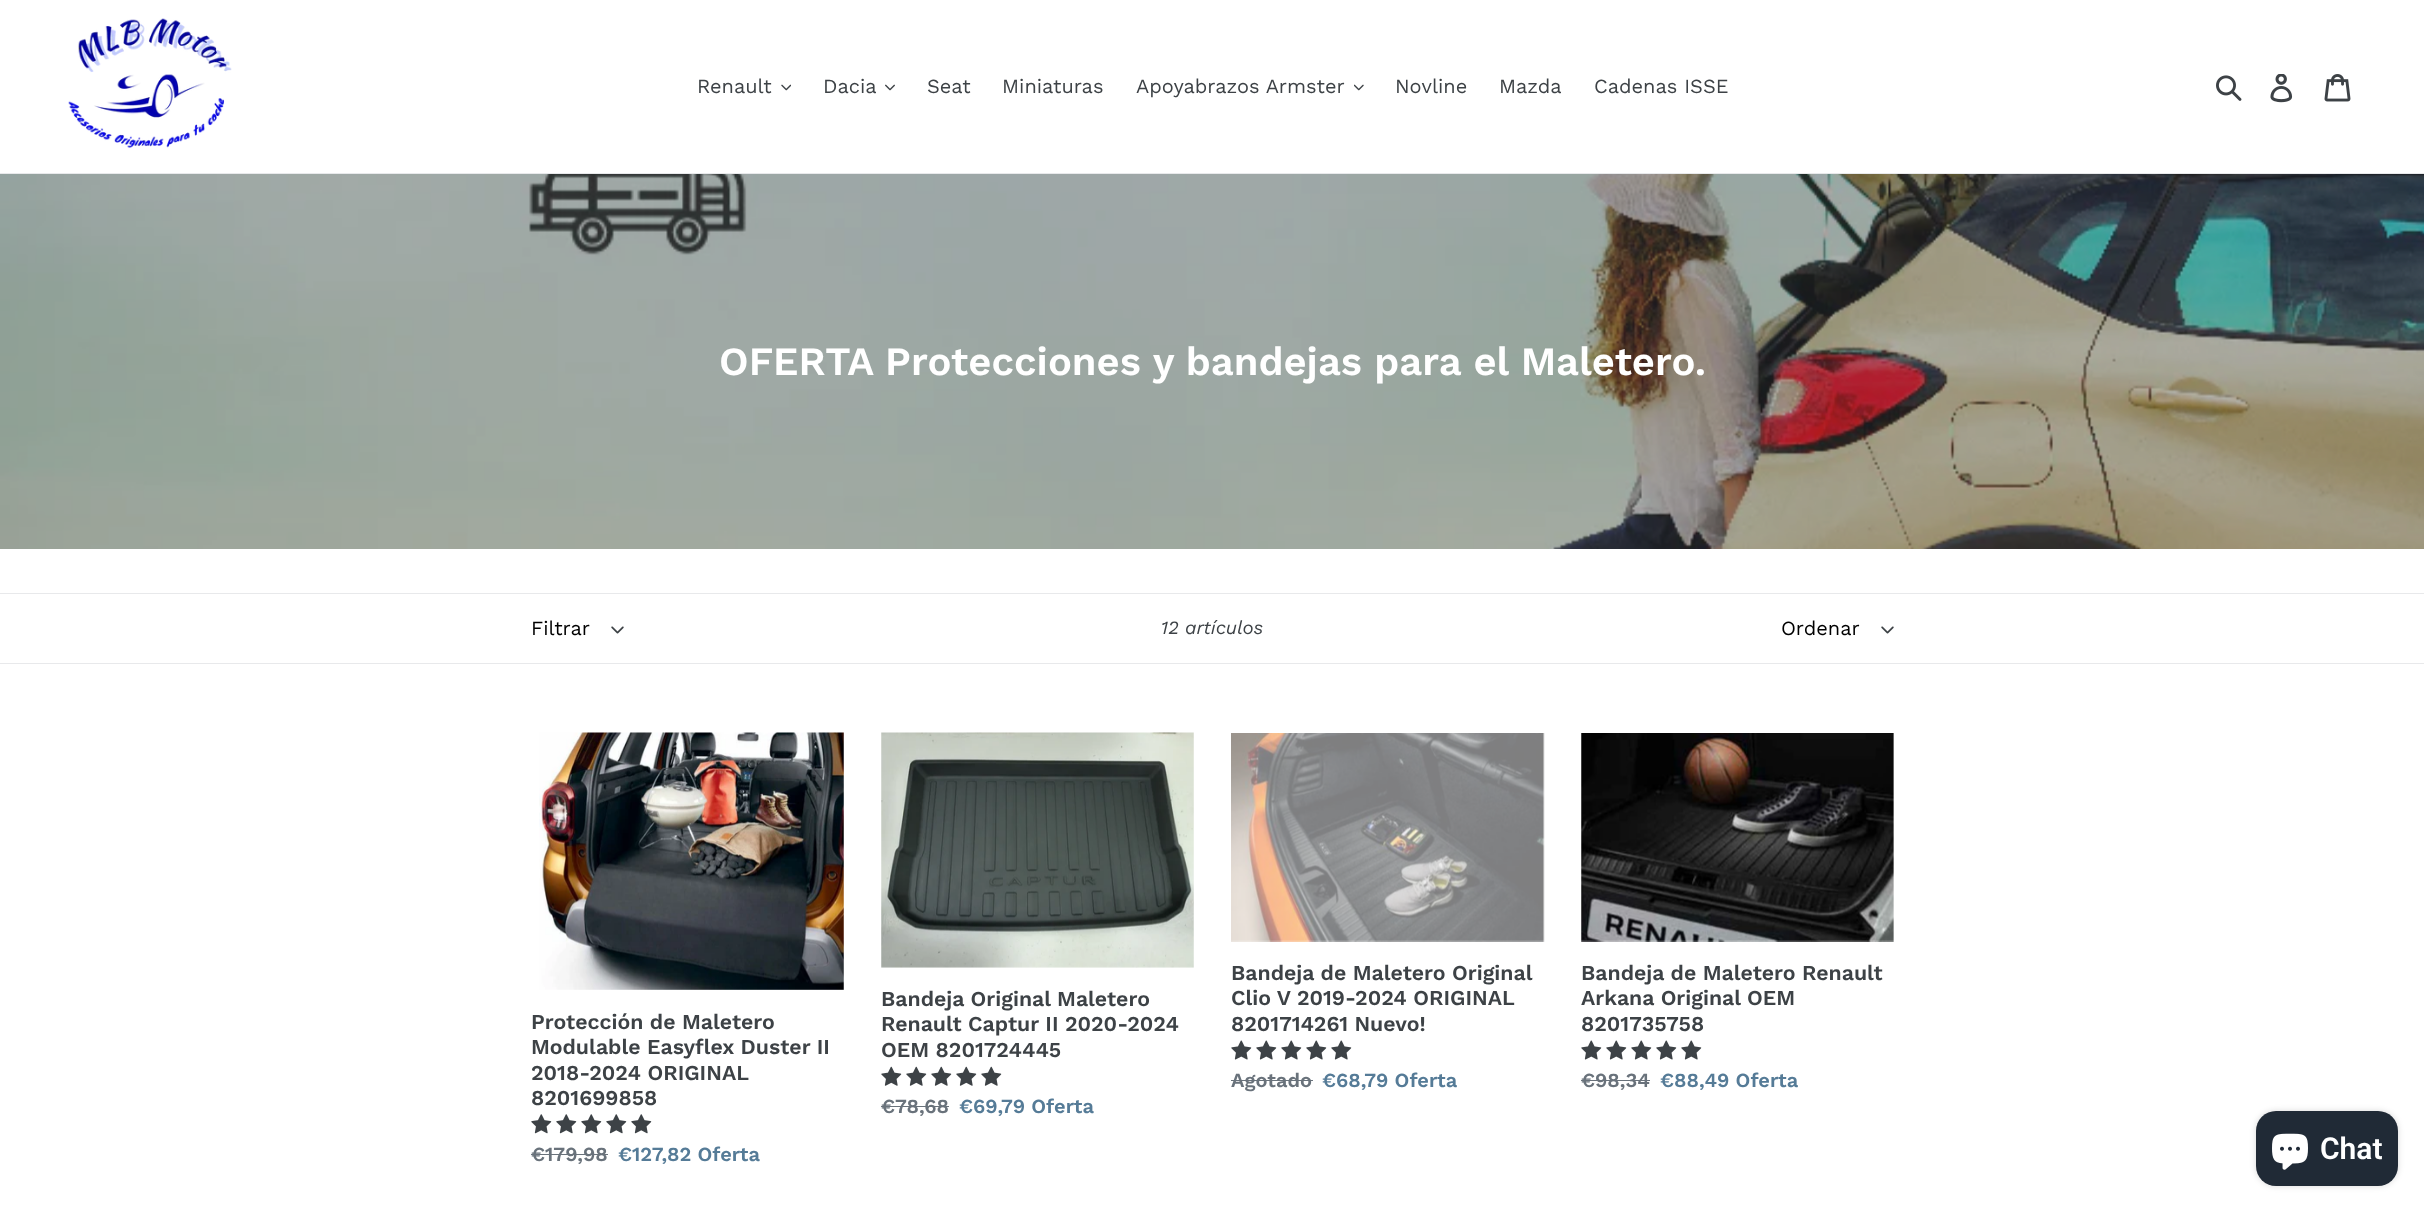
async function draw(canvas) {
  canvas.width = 2424
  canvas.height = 1212
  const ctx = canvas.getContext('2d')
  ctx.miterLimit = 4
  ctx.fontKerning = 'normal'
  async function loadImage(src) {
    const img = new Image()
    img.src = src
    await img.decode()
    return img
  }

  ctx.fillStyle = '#fff'
  ctx.fillRect(0, 0, 2424, 1212)
  ctx.fillStyle = '#e8e9eb'
  ctx.fillRect(0, 173, 2424, 1)
  ctx.drawImage(await loadImage('image0.png'), 68, 18, 164, 130)
  ctx.font = '20px Work Sans'
  ctx.fillStyle = '#3d4246'
  ctx.fillText('Renault', 697, 93)
  ctx.drawImage(await loadImage('image1.png'), 781, 84, 10, 7)
  ctx.fillText('Dacia', 823, 93)
  ctx.drawImage(await loadImage('image2.png'), 885, 84, 10, 7)
  ctx.fillText('Seat', 927, 93)
  ctx.fillText('Miniaturas', 1002, 93)
  ctx.fillText('Apoyabrazos Armster', 1136, 93)
  ctx.drawImage(await loadImage('image3.png'), 1354, 84, 10, 7)
  ctx.fillText('Novline', 1395, 93)
  ctx.fillText('Mazda', 1499, 93)
  ctx.fillText('Cadenas ISSE', 1594, 93)
  ctx.drawImage(await loadImage('image4.png'), 2216, 75, 26, 26)
  ctx.drawImage(await loadImage('image5.png'), 2270, 74, 23, 29)
  ctx.drawImage(await loadImage('image6.png'), 2324, 74, 27, 28)
  ctx.drawImage(await loadImage('image7.png'), 0, 174, 2424, 375)
  ctx.font = '600 40px Work Sans'
  ctx.fillStyle = '#fff'
  ctx.fillText('OFERTA Protecciones y bandejas para el Maletero.', 719, 375)
  ctx.fillStyle = '#e8e9eb'
  ctx.fillRect(0, 593, 2424, 1)
  ctx.fillRect(0, 663, 2424, 1)
  ctx.font = '20px Work Sans'
  ctx.fillStyle = '#000'
  ctx.fillText('Filtrar', 531, 635)
  ctx.drawImage(await loadImage('image8.png'), 611, 626, 13, 8)
  ctx.font = 'italic 18.75px Work Sans'
  ctx.fillStyle = '#3d4246'
  ctx.fillText('12 artículos', 1161, 634)
  ctx.font = '20px Work Sans'
  ctx.fillStyle = '#000'
  ctx.fillText('Ordenar', 1781, 635)
  ctx.drawImage(await loadImage('image8.png'), 1881, 626, 13, 8)
  ctx.drawImage(await loadImage('image9.png'), 539, 732, 305, 258)
  ctx.font = '600 21.25px Work Sans'
  ctx.fillStyle = '#3d4246'
  ctx.fillText('Protección de Maletero', 531, 1029)
  ctx.fillText('Modulable Easyflex Duster II', 531, 1054)
  ctx.fillText('2018-2024 ORIGINAL', 531, 1080)
  ctx.fillText('8201699858', 531, 1105)
  ctx.drawImage(await loadImage('image10.png'), 531, 1114, 21, 20)
  ctx.drawImage(await loadImage('image10.png'), 556, 1114, 21, 20)
  ctx.drawImage(await loadImage('image10.png'), 581, 1114, 21, 20)
  ctx.drawImage(await loadImage('image10.png'), 606, 1114, 21, 20)
  ctx.drawImage(await loadImage('image10.png'), 631, 1114, 21, 20)
  ctx.font = '600 20px Work Sans'
  ctx.fillStyle = '#69727b'
  ctx.fillText('€179,98', 531, 1161)
  ctx.fillRect(531, 1154, 77, 1)
  ctx.fillStyle = '#557b97'
  ctx.fillText('€127,82 Oferta', 618, 1161)
  ctx.drawImage(await loadImage('image11.png'), 881, 732, 313, 236)
  ctx.font = '600 21.25px Work Sans'
  ctx.fillStyle = '#3d4246'
  ctx.fillText('Bandeja Original Maletero', 881, 1006)
  ctx.fillText('Renault Captur II 2020-2024', 881, 1031)
  ctx.fillText('OEM 8201724445', 881, 1057)
  ctx.drawImage(await loadImage('image12.png'), 881, 1066, 21, 20)
  ctx.drawImage(await loadImage('image12.png'), 906, 1066, 21, 20)
  ctx.drawImage(await loadImage('image12.png'), 931, 1066, 21, 20)
  ctx.drawImage(await loadImage('image12.png'), 956, 1066, 21, 20)
  ctx.drawImage(await loadImage('image12.png'), 981, 1066, 21, 20)
  ctx.font = '600 20px Work Sans'
  ctx.fillStyle = '#69727b'
  ctx.fillText('€78,68', 881, 1113)
  ctx.fillRect(881, 1106, 68, 1)
  ctx.fillStyle = '#557b97'
  ctx.fillText('€69,79 Oferta', 959, 1113)
  ctx.drawImage(await loadImage('image13.png'), 1231, 733, 314, 209)
  ctx.font = '600 21.25px Work Sans'
  ctx.fillStyle = '#3d4246'
  ctx.fillText('Bandeja de Maletero Original', 1231, 980)
  ctx.fillText('Clio V 2019-2024 ORIGINAL', 1231, 1005)
  ctx.fillText('8201714261 Nuevo!', 1231, 1031)
  ctx.drawImage(await loadImage('image14.png'), 1231, 1040, 21, 20)
  ctx.drawImage(await loadImage('image14.png'), 1256, 1040, 21, 20)
  ctx.drawImage(await loadImage('image14.png'), 1281, 1040, 21, 20)
  ctx.drawImage(await loadImage('image14.png'), 1306, 1040, 21, 20)
  ctx.drawImage(await loadImage('image14.png'), 1331, 1040, 21, 20)
  ctx.font = '600 20px Work Sans'
  ctx.fillStyle = '#69727b'
  ctx.fillText('Agotado', 1231, 1087)
  ctx.fillRect(1231, 1080, 82, 1)
  ctx.fillStyle = '#557b97'
  ctx.fillText('€68,79 Oferta', 1322, 1087)
  ctx.drawImage(await loadImage('image15.png'), 1581, 733, 313, 209)
  ctx.font = '600 21.25px Work Sans'
  ctx.fillStyle = '#3d4246'
  ctx.fillText('Bandeja de Maletero Renault', 1581, 980)
  ctx.fillText('Arkana Original OEM', 1581, 1005)
  ctx.fillText('8201735758', 1581, 1031)
  ctx.drawImage(await loadImage('image14.png'), 1581, 1040, 21, 20)
  ctx.drawImage(await loadImage('image14.png'), 1606, 1040, 21, 20)
  ctx.drawImage(await loadImage('image14.png'), 1631, 1040, 21, 20)
  ctx.drawImage(await loadImage('image14.png'), 1656, 1040, 21, 20)
  ctx.drawImage(await loadImage('image14.png'), 1681, 1040, 21, 20)
  ctx.font = '600 20px Work Sans'
  ctx.fillStyle = '#69727b'
  ctx.fillText('€98,34', 1581, 1087)
  ctx.fillRect(1581, 1080, 69, 1)
  ctx.fillStyle = '#557b97'
  ctx.fillText('€88,49 Oferta', 1660, 1087)
  ctx.fillStyle = '#00000026'
  ctx.filter = 'blur(3px)'
  ctx.beginPath()
  ctx.roundRect(2256, 1111, 142, 75, 20)
  ctx.fill()
  ctx.filter = 'none'
  ctx.fillStyle = '#202a36'
  ctx.beginPath()
  ctx.roundRect(2256, 1111, 142, 75, 20)
  ctx.fill()
  ctx.drawImage(await loadImage('image16.png'), 2272, 1133, 36, 37)
  ctx.font = '600 30px Roboto'
  ctx.fillStyle = '#fff'
  ctx.fillText('Chat', 2320, 1159)
}

draw(document.querySelector('canvas'))
